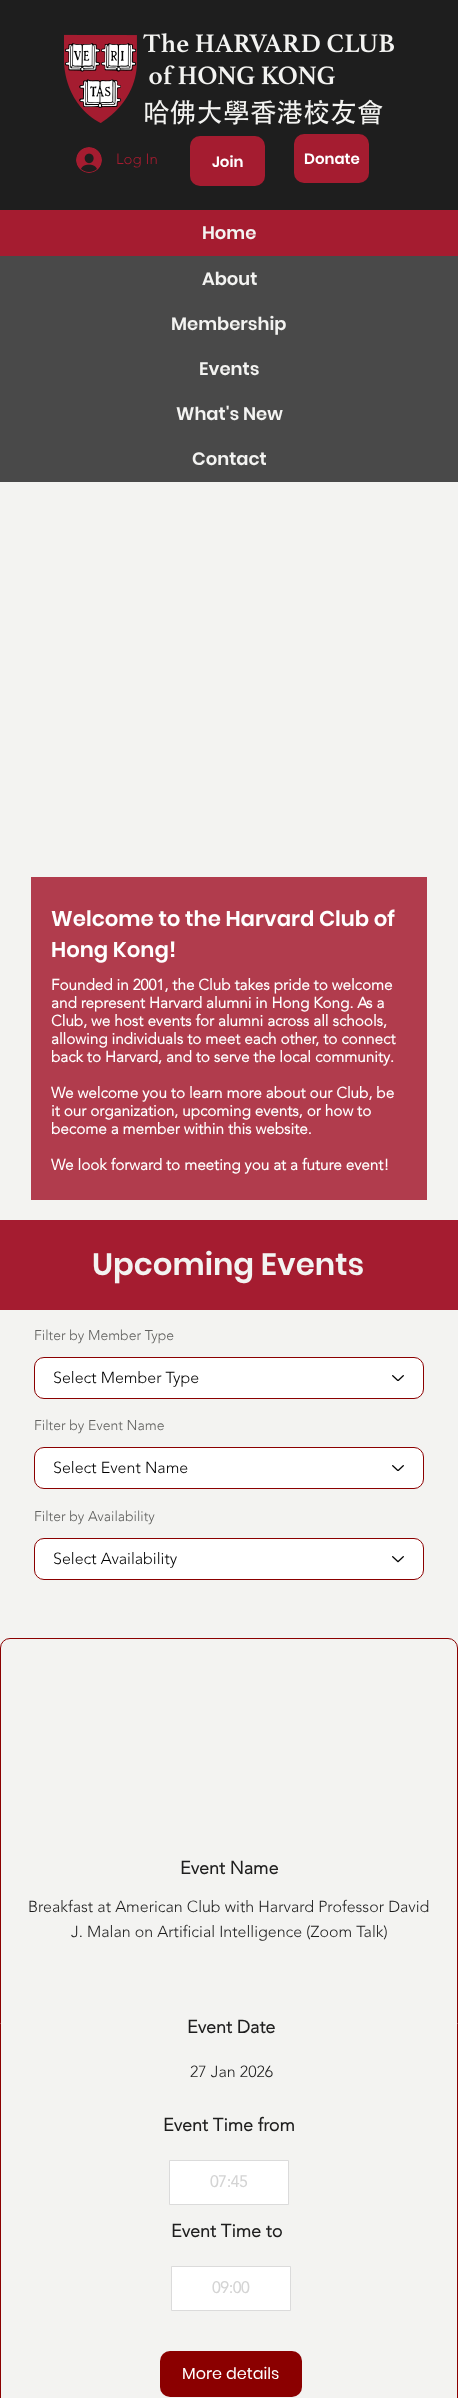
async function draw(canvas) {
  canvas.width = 458
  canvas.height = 2398
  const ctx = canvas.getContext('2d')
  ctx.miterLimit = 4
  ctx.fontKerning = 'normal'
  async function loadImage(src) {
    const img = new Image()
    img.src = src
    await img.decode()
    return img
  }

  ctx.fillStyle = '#f3f3f1'
  ctx.fillRect(0, 0, 458, 2398)
  ctx.fillStyle = '#1e1e1e'
  ctx.fillRect(0, 0, 458, 210)
  ctx.drawImage(await loadImage('image0.png'), 64, 33, 330, 92)
  ctx.drawImage(await loadImage('image1.png'), 76, 147, 26, 26)
  ctx.font = '300 15px "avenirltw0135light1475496"'
  ctx.fillStyle = '#a51c30'
  ctx.fillText('Log In', 116, 164)
  ctx.beginPath()
  ctx.roundRect(190, 136, 75, 50, 10)
  ctx.fill()
  ctx.font = '600 15px Poppins'
  ctx.fillStyle = '#fff'
  ctx.fillText('Join', 212, 167)
  ctx.fillStyle = '#a51c30'
  ctx.beginPath()
  ctx.roundRect(294, 134, 75, 49, 10)
  ctx.fill()
  ctx.fillStyle = '#fff'
  ctx.fillText('Donate', 304, 164)
  ctx.fillStyle = '#a51c30'
  ctx.fillRect(0, 210, 458, 46)
  ctx.font = '600 18px Poppins'
  ctx.fillStyle = '#f3f3f1'
  ctx.fillText('Home', 202, 239)
  ctx.fillStyle = '#494949'
  ctx.fillRect(0, 256, 458, 226)
  ctx.fillStyle = '#f3f3f1'
  ctx.fillText('About', 202, 285)
  ctx.fillText('Membership', 171, 330)
  ctx.fillText('Events', 199, 375)
  ctx.fillText('What\'s New', 176, 420)
  ctx.fillText('Contact', 192, 465)
  ctx.fillStyle = '#b13c4d'
  ctx.fillRect(31, 877, 396, 323)
  ctx.font = '600 21.25px Poppins'
  ctx.fillStyle = '#fff'
  ctx.fillText('Welcome to the Harvard Club of', 51, 926)
  ctx.fillText('Hong Kong!', 51, 957)
  ctx.font = 'bold 15.25px "avenirltw0135light1475496"'
  ctx.fillText('Founded in 2001, the Club takes pride to welcome', 51, 990)
  ctx.fillText('and represent Harvard alumni in Hong Kong. As a', 51, 1008)
  ctx.fillText('Club, we host events for alumni across all schools,', 51, 1026)
  ctx.fillText('allowing individuals to meet each other, to connect', 51, 1044)
  ctx.fillText('back to Harvard, and to serve the local community.', 51, 1062)
  ctx.fillText('We welcome you to learn more about our Club, be', 51, 1098)
  ctx.fillText('it our organization, upcoming events, or how to', 51, 1116)
  ctx.fillText('become a member within this website.', 51, 1134)
  ctx.fillText('We look forward to meeting you at a future event!', 51, 1170)
  ctx.fillStyle = '#a51c30'
  ctx.fillRect(0, 1220, 458, 90)
  ctx.font = '600 30.75px Poppins'
  ctx.fillStyle = '#f3f3f1'
  ctx.fillText('Upcoming Events', 92, 1275)
  ctx.font = '300 14px "avenirltw0135light1475496"'
  ctx.fillStyle = '#61615f'
  ctx.fillText('Filter by Member Type', 34, 1340)
  ctx.fillStyle = '#fff'
  ctx.beginPath()
  ctx.roundRect(34.5, 1357.5, 389, 41, 9.5)
  ctx.fill()
  ctx.strokeStyle = '#8b0000'
  ctx.stroke()
  ctx.font = '300 16px "avenirltw0135light1475496"'
  ctx.fillStyle = '#000'
  ctx.fillText('Select Member Type', 53, 1383)
  ctx.drawImage(await loadImage('image2.png'), 392, 1375, 12, 6)
  ctx.font = '300 14px "avenirltw0135light1475496"'
  ctx.fillStyle = '#61615f'
  ctx.fillText('Filter by Event Name', 34, 1430)
  ctx.fillStyle = '#fff'
  ctx.beginPath()
  ctx.roundRect(34.5, 1447.5, 389, 41, 9.5)
  ctx.fill()
  ctx.stroke()
  ctx.font = '300 16px "avenirltw0135light1475496"'
  ctx.fillStyle = '#000'
  ctx.fillText('Select Event Name', 53, 1473)
  ctx.drawImage(await loadImage('image2.png'), 392, 1465, 12, 6)
  ctx.font = '300 14px "avenirltw0135light1475496"'
  ctx.fillStyle = '#61615f'
  ctx.fillText('Filter by Availability', 34, 1521)
  ctx.fillStyle = '#fff'
  ctx.beginPath()
  ctx.roundRect(34.5, 1538.5, 389, 41, 9.5)
  ctx.fill()
  ctx.stroke()
  ctx.font = '300 16px "avenirltw0135light1475496"'
  ctx.fillStyle = '#000'
  ctx.fillText('Select Availability', 53, 1564)
  ctx.drawImage(await loadImage('image3.png'), 392, 1556, 12, 7)
  ctx.beginPath()
  ctx.roundRect(0.5, 1638.5, 457, 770, 9.5)
  ctx.stroke()
  ctx.font = 'bold 18px "avenirltw0135light1475496"'
  ctx.fillStyle = '#1e1e1e'
  ctx.fillText('Event Name', 180, 1874)
  ctx.font = '300 16px "avenirltw0135light1475496"'
  ctx.fillText('Breakfast at American Club with Harvard Professor David', 28, 1912)
  ctx.fillText('J. Malan on Artificial Intelligence (Zoom Talk)', 71, 1937)
  ctx.font = 'bold 18px "avenirltw0135light1475496"'
  ctx.fillText('Event Date', 187, 2033)
  ctx.font = '300 16px "avenirltw0135light1475496"'
  ctx.fillText('27 Jan 2026', 190, 2077)
  ctx.font = 'bold 18px "avenirltw0135light1475496"'
  ctx.fillText('Event Time from', 163, 2131)
  ctx.fillStyle = '#fff'
  ctx.beginPath()
  ctx.rect(169.5, 2160.5, 119, 44)
  ctx.fill()
  ctx.strokeStyle = '#dbdbdb'
  ctx.stroke()
  ctx.font = 'bold 16px "avenirltw0135light1475496"'
  ctx.fillStyle = '#d4d4d4'
  ctx.fillText('07:45', 210, 2187)
  ctx.font = 'bold 18px "avenirltw0135light1475496"'
  ctx.fillStyle = '#1e1e1e'
  ctx.fillText('Event Time to', 171, 2237)
  ctx.fillStyle = '#fff'
  ctx.beginPath()
  ctx.rect(171.5, 2266.5, 119, 44)
  ctx.fill()
  ctx.stroke()
  ctx.font = 'bold 16px "avenirltw0135light1475496"'
  ctx.fillStyle = '#d4d4d4'
  ctx.fillText('09:00', 212, 2293)
  ctx.fillStyle = '#8b0000'
  ctx.beginPath()
  ctx.roundRect(160, 2351, 142, 46, 10)
  ctx.fill()
  ctx.font = '16px Poppins'
  ctx.fillStyle = '#fff'
  ctx.fillText('More details', 182, 2379)
}

draw(document.querySelector('canvas'))
